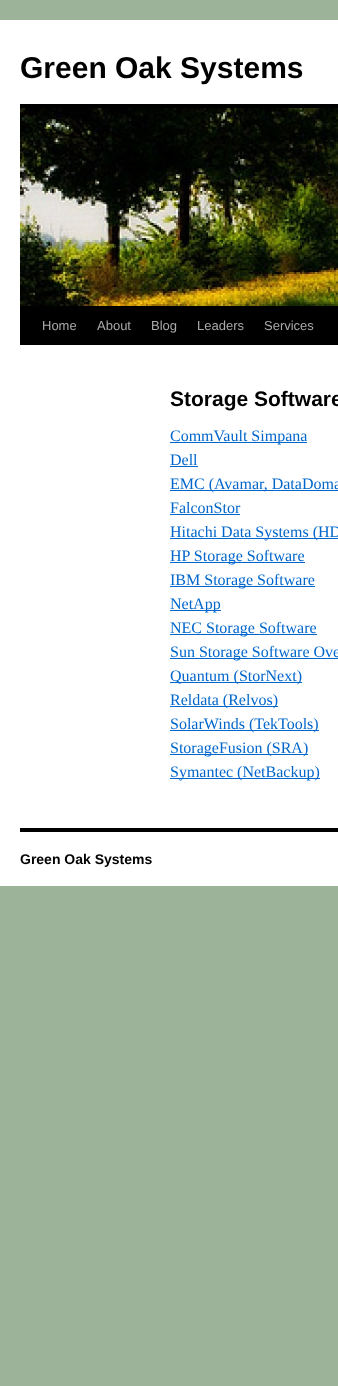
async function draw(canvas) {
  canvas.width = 338
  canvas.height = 1386
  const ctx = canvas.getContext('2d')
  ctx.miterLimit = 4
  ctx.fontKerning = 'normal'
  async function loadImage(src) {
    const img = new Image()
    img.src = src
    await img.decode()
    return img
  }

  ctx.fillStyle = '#9cb39a'
  ctx.fillRect(0, 0, 338, 1386)
  ctx.fillStyle = '#fff'
  ctx.fillRect(0, 20, 338, 866)
  ctx.font = 'bold 30px Liberation Sans'
  ctx.fillStyle = '#000'
  ctx.fillText('Green Oak Systems', 20, 78)
  ctx.fillRect(20, 104, 318, 4)
  ctx.fillRect(20, 306, 318, 39)
  ctx.drawImage(await loadImage('image0.png'), 20, 108, 318, 198)
  ctx.font = '13px Liberation Sans'
  ctx.fillStyle = '#aaa'
  ctx.fillText('Home', 42, 330)
  ctx.fillText('About', 97, 330)
  ctx.fillText('Blog', 151, 330)
  ctx.fillText('Leaders', 197, 330)
  ctx.fillText('Services', 264, 330)
  ctx.font = 'bold 21px Liberation Sans'
  ctx.fillStyle = '#000'
  ctx.fillText('Storage Software', 170, 406)
  ctx.fillStyle = '#06c'
  ctx.fillRect(170, 442, 137, 1)
  ctx.font = '16px Liberation Serif'
  ctx.fillText('CommVault Simpana', 170, 441)
  ctx.fillText('Dell', 170, 465)
  ctx.fillRect(170, 466, 28, 1)
  ctx.fillRect(170, 490, 168, 1)
  ctx.fillText('EMC (Avamar, DataDoma', 170, 489)
  ctx.fillText('FalconStor', 170, 513)
  ctx.fillRect(170, 514, 70, 1)
  ctx.fillRect(170, 538, 168, 1)
  ctx.fillText('Hitachi Data Systems (HD', 170, 537)
  ctx.fillRect(170, 562, 135, 1)
  ctx.fillText('HP Storage Software', 170, 561)
  ctx.fillRect(170, 586, 145, 1)
  ctx.fillText('IBM Storage Software', 170, 585)
  ctx.fillRect(170, 610, 51, 1)
  ctx.fillText('NetApp', 170, 609)
  ctx.fillRect(170, 634, 147, 1)
  ctx.fillText('NEC Storage Software', 170, 633)
  ctx.fillRect(170, 658, 168, 1)
  ctx.fillText('Sun Storage Software Ove', 170, 657)
  ctx.fillRect(170, 682, 132, 1)
  ctx.fillText('Quantum (StorNext)', 170, 681)
  ctx.fillRect(170, 706, 108, 1)
  ctx.fillText('Reldata (Relvos)', 170, 705)
  ctx.fillRect(170, 730, 149, 1)
  ctx.fillText('SolarWinds (TekTools)', 170, 729)
  ctx.fillRect(170, 754, 138, 1)
  ctx.fillText('StorageFusion (SRA)', 170, 753)
  ctx.fillRect(170, 778, 150, 1)
  ctx.fillText('Symantec (NetBackup)', 170, 777)
  ctx.fillStyle = '#000'
  ctx.fillRect(20, 828, 318, 4)
  ctx.font = 'bold 14px Liberation Sans'
  ctx.fillText('Green Oak Systems', 20, 864)
}

draw(document.querySelector('canvas'))
